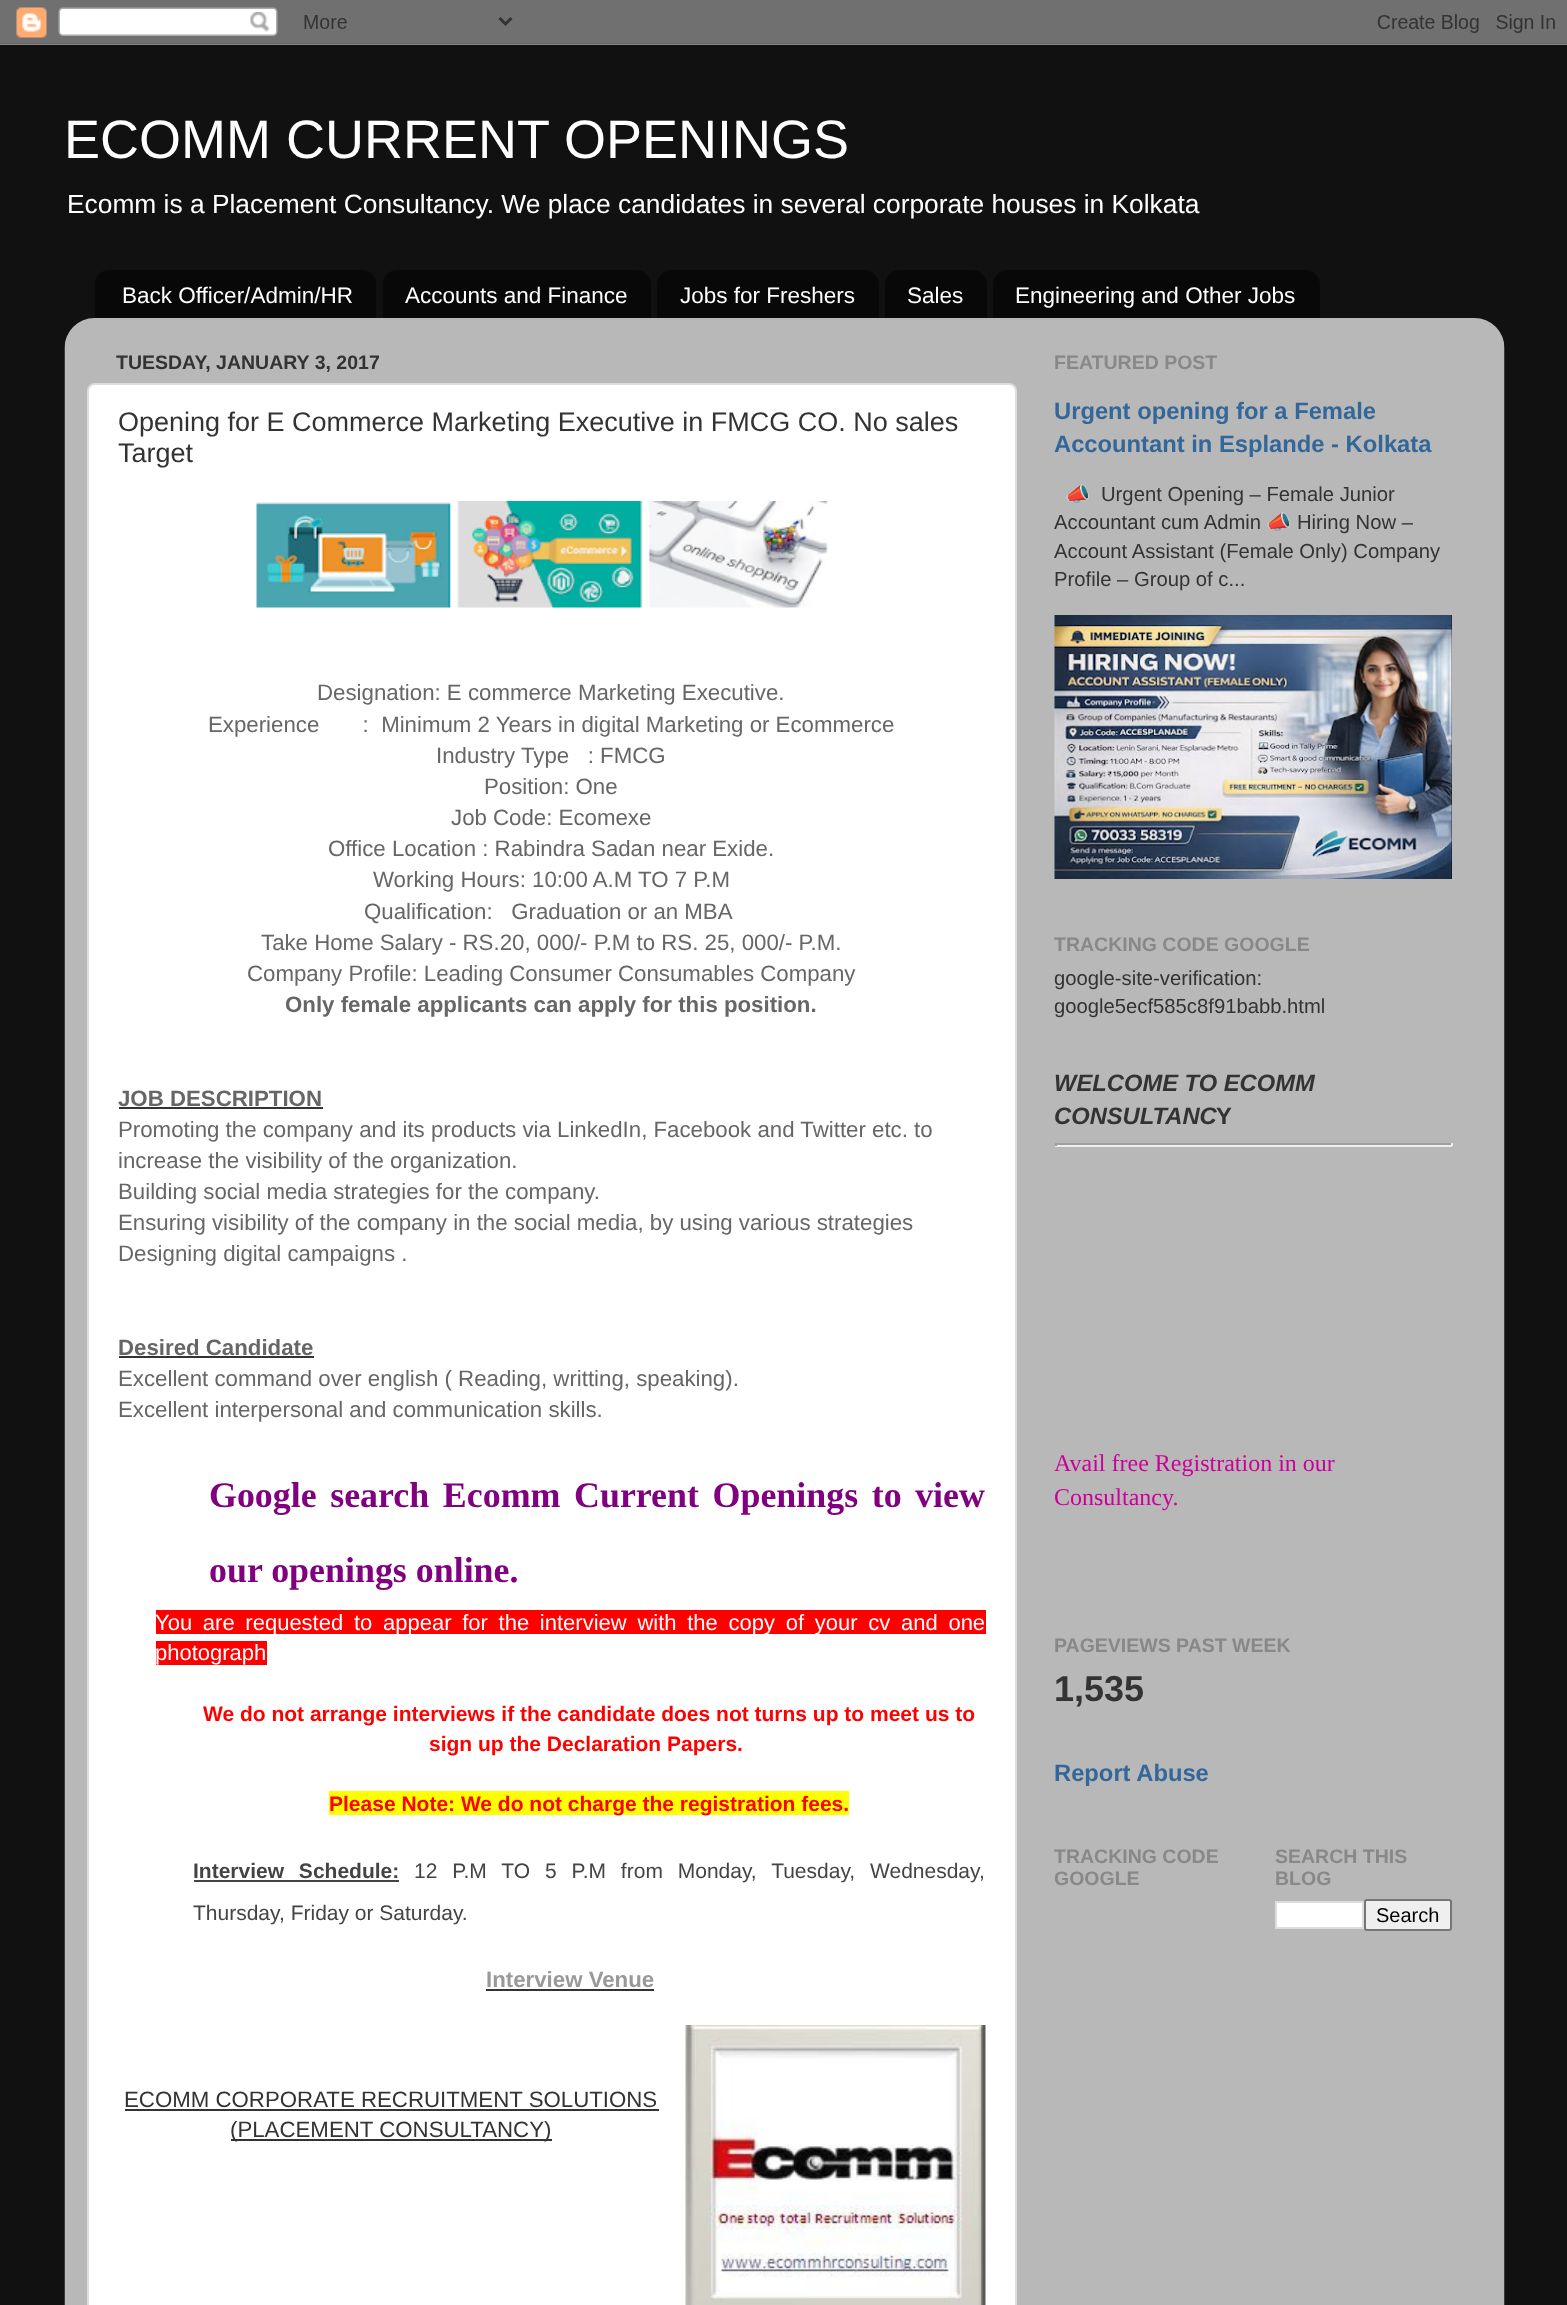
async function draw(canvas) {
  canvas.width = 1567
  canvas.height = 2305
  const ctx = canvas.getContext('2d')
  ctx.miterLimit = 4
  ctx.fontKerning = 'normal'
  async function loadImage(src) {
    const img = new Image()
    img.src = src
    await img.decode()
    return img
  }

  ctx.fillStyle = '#111'
  ctx.fillRect(0, 0, 1567, 2305)
  ctx.drawImage(await loadImage('image0.png'), 0, 0, 1567, 45)
  ctx.font = '54px Liberation Sans'
  ctx.fillStyle = '#fff'
  ctx.fillText('ECOMM CURRENT OPENINGS', 64, 158)
  ctx.font = '26.35px Liberation Sans'
  ctx.fillText('Ecomm is a Placement Consultancy. We place candidates in several corporate houses in Kolkata', 67, 213)
  ctx.drawImage(await loadImage('image1.png'), 95, 270, 281, 48)
  ctx.font = '22.5px Liberation Sans'
  ctx.fillText('Back Officer/Admin/HR', 122, 303)
  ctx.drawImage(await loadImage('image2.png'), 383, 270, 268, 48)
  ctx.fillText('Accounts and Finance', 405, 303)
  ctx.drawImage(await loadImage('image3.png'), 657, 270, 222, 48)
  ctx.fillText('Jobs for Freshers', 680, 303)
  ctx.drawImage(await loadImage('image4.png'), 885, 270, 102, 48)
  ctx.fillText('Sales', 907, 303)
  ctx.drawImage(await loadImage('image5.png'), 993, 270, 327, 48)
  ctx.fillText('Engineering and Other Jobs', 1015, 303)
  ctx.drawImage(await loadImage('image6.png'), 64, 318, 1441, 1987)
  ctx.font = 'bold 19.5px Liberation Sans'
  ctx.fillStyle = '#333'
  ctx.fillText('TUESDAY, JANUARY 3, 2017', 116, 369)
  ctx.fillStyle = '#fff'
  ctx.beginPath()
  ctx.roundRect(88, 384, 928, 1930, 7)
  ctx.fill()
  ctx.strokeStyle = '#ddd'
  ctx.lineWidth = 2
  ctx.stroke()
  ctx.font = '27px Liberation Sans'
  ctx.fillStyle = '#333'
  ctx.fillText('Opening for E Commerce Marketing Executive in FMCG CO. No sales', 118, 431)
  ctx.fillText('Target', 118, 462)
  ctx.drawImage(await loadImage('image7.png'), 256, 501, 573, 107)
  ctx.font = '22.25px Liberation Sans'
  ctx.fillStyle = '#666'
  ctx.fillText('Designation: E commerce Marketing Executive.', 317, 700)
  ctx.fillText('Experience       :  Minimum 2 Years in digital Marketing or Ecommerce', 208, 732)
  ctx.fillText('Industry Type   : FMCG', 436, 763)
  ctx.fillText('Position: One', 484, 794)
  ctx.fillText('Job Code: Ecomexe', 451, 825)
  ctx.fillText('Office Location : Rabindra Sadan near Exide.', 328, 856)
  ctx.fillText('Working Hours: 10:00 A.M TO 7 P.M', 373, 887)
  ctx.fillText('Qualification:   Graduation or an MBA', 364, 919)
  ctx.fillText('Take Home Salary - RS.20, 000/- P.M to RS. 25, 000/- P.M.', 261, 950)
  ctx.fillText('Company Profile: Leading Consumer Consumables Company', 247, 981)
  ctx.font = 'bold 22.25px Liberation Sans'
  ctx.fillText('Only female applicants can apply for this position.', 285, 1012)
  ctx.fillText('JOB DESCRIPTION', 118, 1106)
  ctx.fillStyle = '#333'
  ctx.fillRect(119, 1107, 204, 2)
  ctx.font = '22.25px Liberation Sans'
  ctx.fillStyle = '#666'
  ctx.fillText('Promoting the company and its products via LinkedIn, Facebook and Twitter etc. to', 118, 1137)
  ctx.fillText('increase the visibility of the organization.', 118, 1168)
  ctx.fillText('Building social media strategies for the company.', 118, 1199)
  ctx.fillText('Ensuring visibility of the company in the social media, by using various strategies', 118, 1230)
  ctx.fillText('Designing digital campaigns .', 118, 1261)
  ctx.font = 'bold 22.25px Liberation Sans'
  ctx.fillText('Desired Candidate', 118, 1355)
  ctx.fillStyle = '#333'
  ctx.fillRect(119, 1356, 195, 2)
  ctx.font = '22.25px Liberation Sans'
  ctx.fillStyle = '#666'
  ctx.fillText('Excellent command over english ( Reading, writting, speaking).', 118, 1386)
  ctx.fillText('Excellent interpersonal and communication skills.', 118, 1417)
  ctx.wordSpacing = '4.6px'
  ctx.font = 'bold 35.9px Liberation Serif'
  ctx.fillStyle = '#800080'
  ctx.fillText('Google search Ecomm Current Openings to view', 209, 1507)
  ctx.wordSpacing = '0px'
  ctx.fillText('our openings online.', 209, 1582)
  ctx.fillStyle = '#f00'
  ctx.fillRect(156, 1610, 830, 24)
  ctx.wordSpacing = '4.6px'
  ctx.font = '22px Liberation Sans'
  ctx.fillStyle = '#fff'
  ctx.fillText('You are requested to appear for the interview with the copy of your cv and one', 155, 1630)
  ctx.fillStyle = '#f00'
  ctx.fillRect(156, 1641, 111, 24)
  ctx.wordSpacing = '0px'
  ctx.fillStyle = '#fff'
  ctx.fillText('photograph', 155, 1660)
  ctx.font = 'bold 21px Liberation Sans'
  ctx.fillStyle = '#f00'
  ctx.fillText('We do not arrange interviews if the candidate does not turns up to meet us to', 203, 1721)
  ctx.fillText('sign up the Declaration Papers.', 429, 1751)
  ctx.fillStyle = '#ff0'
  ctx.fillRect(329, 1791, 520, 24)
  ctx.fillStyle = '#f00'
  ctx.fillText('Please Note: We do not charge the registration fees.', 329, 1811)
  ctx.wordSpacing = '9px'
  ctx.fillStyle = '#444'
  ctx.fillText('Interview Schedule:', 193, 1878)
  ctx.fillRect(194, 1880, 205, 2)
  ctx.font = '21px Liberation Sans'
  ctx.fillText('12 P.M TO 5 P.M from Monday, Tuesday, Wednesday,', 414, 1878)
  ctx.wordSpacing = '0px'
  ctx.fillText('Thursday, Friday or Saturday.', 193, 1920)
  ctx.font = 'bold 22.25px Liberation Sans'
  ctx.fillStyle = '#999'
  ctx.fillText('Interview Venue', 486, 1987)
  ctx.fillStyle = '#333'
  ctx.fillRect(486, 1989, 168, 2)
  ctx.font = '22.25px Liberation Sans'
  ctx.fillText('ECOMM CORPORATE RECRUITMENT SOLUTIONS', 124, 2107)
  ctx.fillRect(125, 2109, 534, 2)
  ctx.drawImage(await loadImage('image8.png'), 685, 2025, 301, 280)
  ctx.fillRect(231, 2139, 321, 2)
  ctx.fillText('(PLACEMENT CONSULTANCY)', 230, 2137)
  ctx.font = 'bold 19.5px Liberation Sans'
  ctx.fillStyle = '#888'
  ctx.fillText('FEATURED POST', 1054, 369)
  ctx.font = 'bold 23.75px Liberation Sans'
  ctx.fillStyle = '#369'
  ctx.fillText('Urgent opening for a Female', 1054, 419)
  ctx.fillText('Accountant in Esplande - Kolkata', 1054, 452)
  ctx.font = '20.25px Noto Color Emoji'
  ctx.fillStyle = '#333'
  ctx.fillText('📣', 1065, 501)
  ctx.font = '20.25px Liberation Sans'
  ctx.fillText('Urgent Opening – Female Junior', 1101, 501)
  ctx.fillText('Accountant cum Admin', 1054, 529)
  ctx.font = '20.25px Noto Color Emoji'
  ctx.fillText('📣', 1266, 529)
  ctx.font = '20.25px Liberation Sans'
  ctx.fillText('Hiring Now –', 1297, 529)
  ctx.fillText('Account Assistant (Female Only) Company', 1054, 558)
  ctx.fillText('Profile – Group of c...', 1054, 586)
  ctx.drawImage(await loadImage('image9.png'), 1054, 615, 398, 264)
  ctx.font = 'bold 19.5px Liberation Sans'
  ctx.fillStyle = '#888'
  ctx.fillText('TRACKING CODE GOOGLE', 1054, 951)
  ctx.font = '20.25px Liberation Sans'
  ctx.fillStyle = '#333'
  ctx.fillText('google-site-verification:', 1054, 985)
  ctx.fillText('google5ecf585c8f91babb.html', 1054, 1013)
  ctx.font = 'italic bold 23.75px Liberation Sans'
  ctx.fillText('WELCOME TO ECOMM', 1054, 1091)
  ctx.fillText('CONSULTANC', 1054, 1124)
  ctx.font = 'bold 23.75px Liberation Sans'
  ctx.fillText('Y', 1216, 1124)
  ctx.fillStyle = '#9f9f9f'
  ctx.fillRect(1055, 1143, 397, 2)
  ctx.fillStyle = '#eee'
  ctx.fillRect(1451, 1143, 2, 3)
  ctx.fillRect(1055, 1145, 397, 2)
  ctx.fillStyle = '#9f9f9f'
  ctx.fillRect(1055, 1143, 2, 3)
  ctx.font = '24px Liberation Serif'
  ctx.fillStyle = '#c09'
  ctx.fillText('Avail free Registration in our', 1054, 1471)
  ctx.save()
  ctx.beginPath()
  ctx.rect(1055, 1157, 397, 424)
  ctx.clip()
  ctx.fillText('Consultancy.', 1054, 1505)
  ctx.restore()
  ctx.font = 'bold 19.5px Liberation Sans'
  ctx.fillStyle = '#888'
  ctx.fillText('PAGEVIEWS PAST WEEK', 1054, 1652)
  ctx.font = 'bold 36px Liberation Sans'
  ctx.fillStyle = '#333'
  ctx.fillText('1,535', 1054, 1701)
  ctx.font = 'bold 23.75px Liberation Sans'
  ctx.fillStyle = '#369'
  ctx.fillText('Report Abuse', 1054, 1781)
  ctx.font = 'bold 19.5px Liberation Sans'
  ctx.fillStyle = '#888'
  ctx.fillText('TRACKING CODE', 1054, 1863)
  ctx.fillText('GOOGLE', 1054, 1885)
  ctx.fillText('SEARCH THIS', 1275, 1863)
  ctx.fillText('BLOG', 1275, 1885)
  ctx.fillStyle = '#fff'
  ctx.beginPath()
  ctx.rect(1276, 1902, 87, 26)
  ctx.fill()
  ctx.stroke()
  ctx.fillStyle = '#efefef'
  ctx.beginPath()
  ctx.roundRect(1365, 1900, 86, 30, 2)
  ctx.fill()
  ctx.strokeStyle = '#767676'
  ctx.stroke()
  ctx.font = '20px Liberation Sans'
  ctx.fillStyle = '#000'
  ctx.fillText('Search', 1376, 1922)
}

draw(document.querySelector('canvas'))
